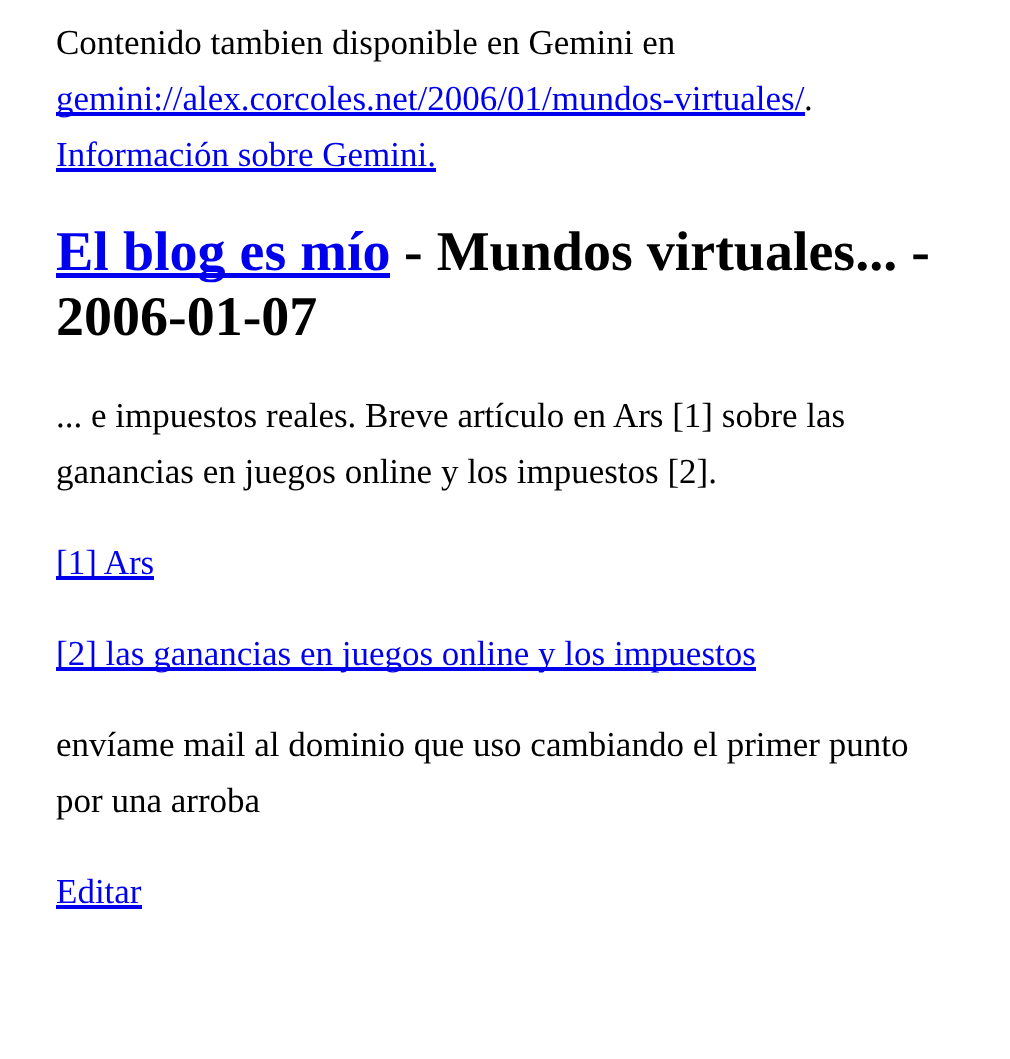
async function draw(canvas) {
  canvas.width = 1010
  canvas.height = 1059
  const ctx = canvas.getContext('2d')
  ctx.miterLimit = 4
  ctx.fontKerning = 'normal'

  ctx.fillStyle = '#fff'
  ctx.fillRect(0, 0, 1010, 1059)
  ctx.font = '35px Liberation Serif'
  ctx.fillStyle = '#000'
  ctx.fillText('Contenido tambien disponible en Gemini en', 56, 54)
  ctx.fillStyle = '#00e'
  ctx.fillRect(56, 112, 749, 4)
  ctx.fillText('gemini://alex.corcoles.net/2006/01/mundos-virtuales/', 56, 110)
  ctx.fillStyle = '#000'
  ctx.fillText('.', 804, 110)
  ctx.fillStyle = '#00e'
  ctx.fillText('Información sobre Gemini.', 56, 166)
  ctx.fillRect(56, 168, 380, 4)
  ctx.fillRect(56, 273, 334, 5)
  ctx.font = 'bold 56px Liberation Serif'
  ctx.fillText('El blog es mío', 56, 270)
  ctx.fillStyle = '#000'
  ctx.fillText('- Mundos virtuales... -', 404, 270)
  ctx.fillText('2006-01-07', 56, 335)
  ctx.font = '35px Liberation Serif'
  ctx.fillText('... e impuestos reales. Breve artículo en Ars [1] sobre las', 56, 427)
  ctx.fillText('ganancias en juegos online y los impuestos [2].', 56, 483)
  ctx.fillStyle = '#00e'
  ctx.fillRect(56, 576, 98, 4)
  ctx.fillText('[1] Ars', 56, 574)
  ctx.fillRect(56, 667, 700, 4)
  ctx.fillText('[2] las ganancias en juegos online y los impuestos', 56, 665)
  ctx.fillStyle = '#000'
  ctx.fillText('envíame mail al dominio que uso cambiando el primer punto', 56, 756)
  ctx.fillText('por una arroba', 56, 812)
  ctx.fillStyle = '#00e'
  ctx.fillText('Editar', 56, 903)
  ctx.fillRect(56, 905, 86, 4)
}

draw(document.querySelector('canvas'))
